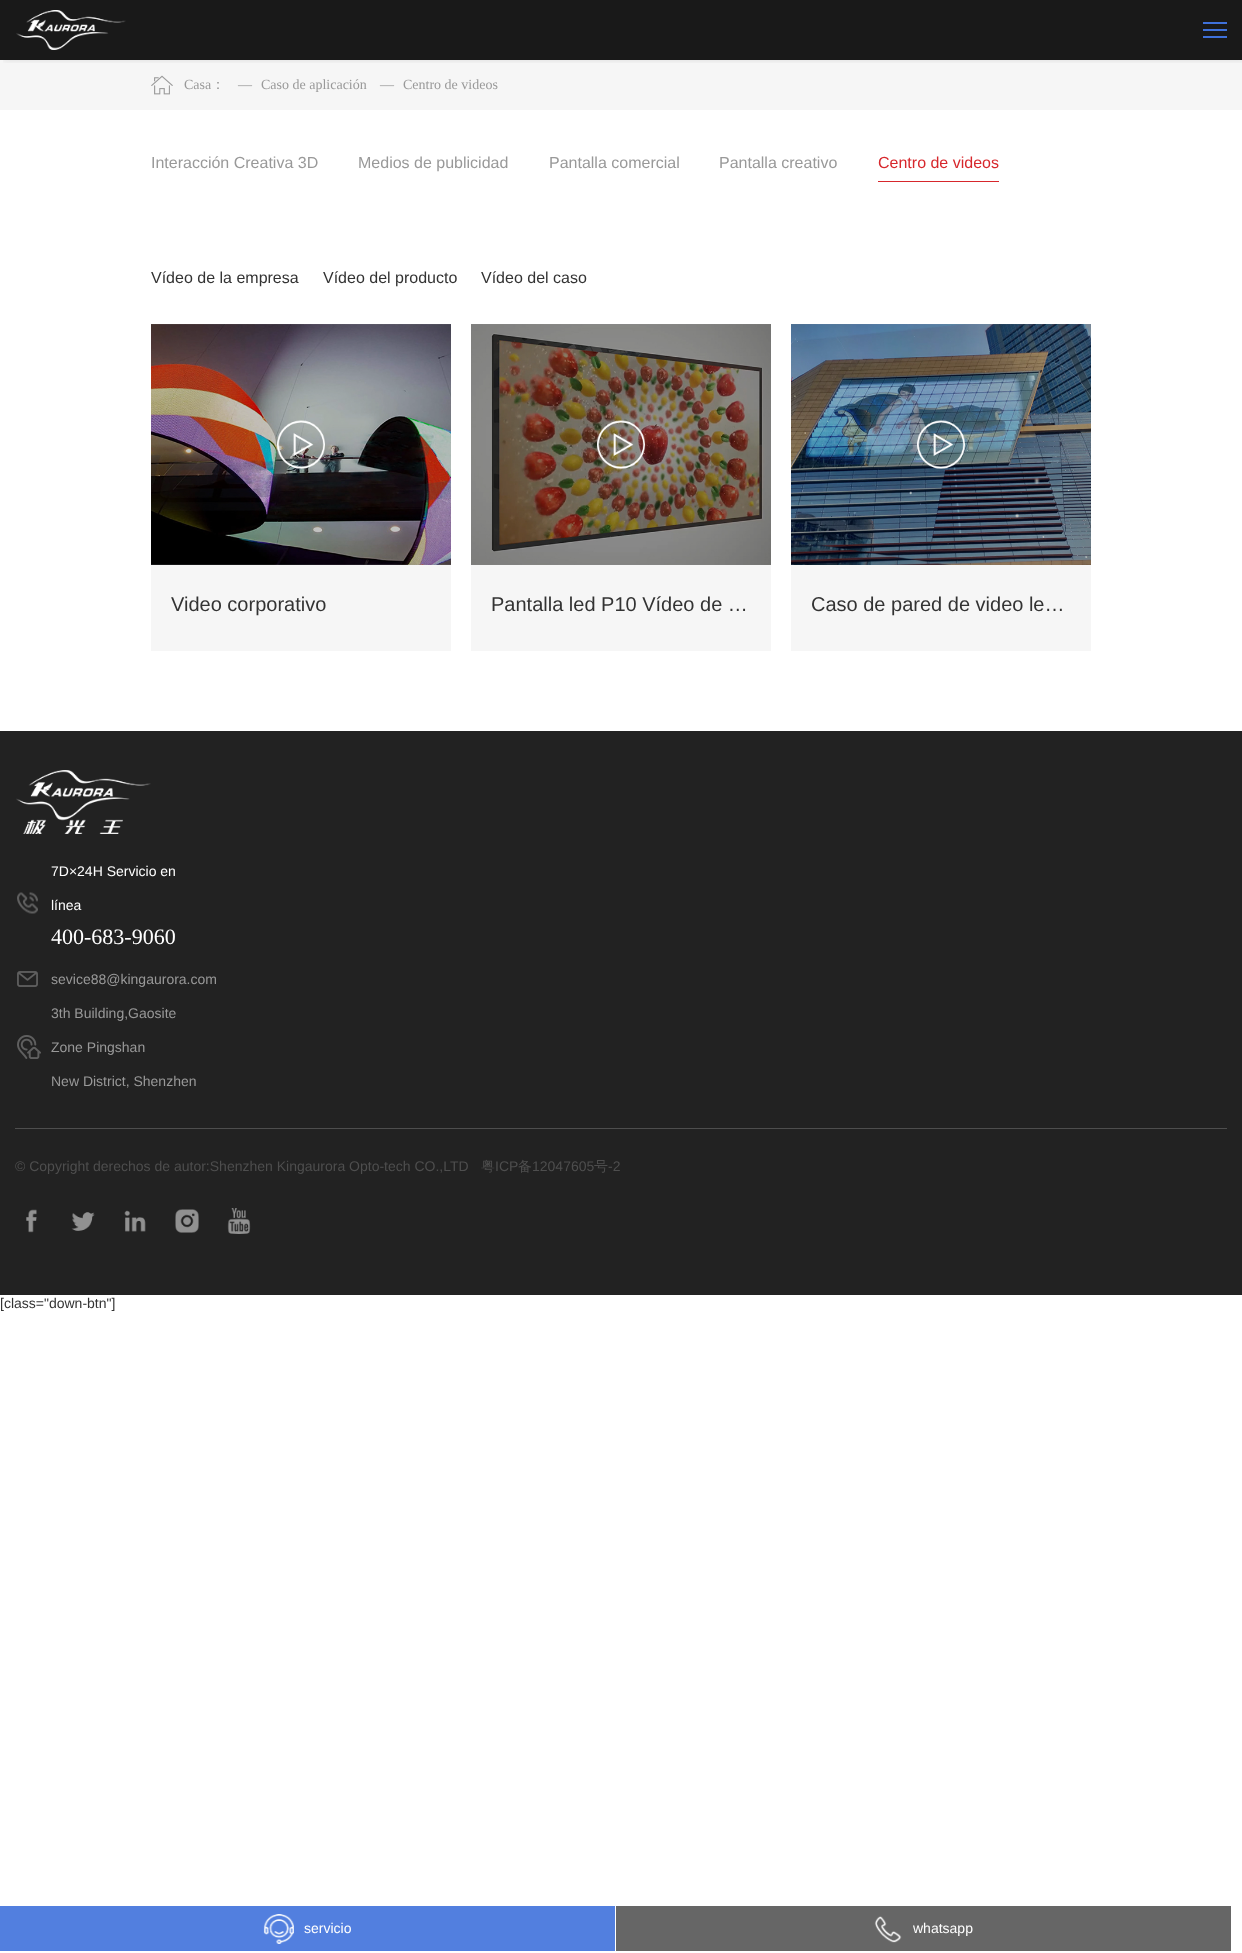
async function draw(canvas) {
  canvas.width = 1242
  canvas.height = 1953
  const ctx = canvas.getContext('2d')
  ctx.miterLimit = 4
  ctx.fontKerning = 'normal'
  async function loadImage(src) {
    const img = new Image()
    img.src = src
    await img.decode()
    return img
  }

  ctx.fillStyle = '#fff'
  ctx.fillRect(0, 0, 1242, 1953)
  ctx.fillStyle = '#191919'
  ctx.fillRect(0, 0, 1242, 60)
  ctx.fillStyle = '#f6f6f6'
  ctx.fillRect(0, 60, 1242, 50)
  ctx.save()
  ctx.beginPath()
  ctx.rect(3, 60, 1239, 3)
  ctx.clip()
  ctx.fillStyle = '#0000001a'
  ctx.filter = 'blur(3.5px)'
  ctx.beginPath()
  ctx.rect(3, 0, 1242, 60)
  ctx.fill()
  ctx.filter = 'none'
  ctx.restore()
  ctx.drawImage(await loadImage('image0.png'), 16, 10, 110, 40)
  ctx.fillStyle = '#3f71db'
  ctx.fillRect(1203, 22, 24, 2)
  ctx.fillRect(1203, 29, 24, 2)
  ctx.fillRect(1203, 36, 24, 2)
  ctx.drawImage(await loadImage('image1.png'), 151, 75, 22, 20)
  ctx.font = '14px Liberation Serif'
  ctx.fillStyle = '#999'
  ctx.fillText('Casa', 184, 89)
  ctx.font = '500 14px WenQuanYi Zen Hei'
  ctx.fillText('：', 211, 89)
  ctx.font = '14px Liberation Serif'
  ctx.fillText('—', 238, 89)
  ctx.fillText('Caso de aplicación', 261, 89)
  ctx.fillText('—', 380, 89)
  ctx.fillText('Centro de videos', 403, 89)
  ctx.font = '16px Liberation Sans'
  ctx.fillText('Interacción Creativa 3D', 151, 168)
  ctx.fillText('Medios de publicidad', 358, 168)
  ctx.fillText('Pantalla comercial', 549, 168)
  ctx.fillText('Pantalla creativo', 719, 168)
  ctx.fillStyle = '#d7272c'
  ctx.fillRect(878, 181, 121, 1)
  ctx.fillText('Centro de videos', 878, 168)
  ctx.fillStyle = '#333'
  ctx.fillText('Vídeo de la empresa', 151, 283)
  ctx.fillText('Vídeo del producto', 323, 283)
  ctx.fillText('Vídeo del caso', 481, 283)
  ctx.drawImage(await loadImage('image2.png'), 151, 324, 300, 241)
  ctx.drawImage(await loadImage('image3.png'), 277, 420, 48, 49)
  ctx.fillStyle = '#f6f6f6'
  ctx.fillRect(151, 565, 300, 86)
  ctx.font = '20px Liberation Sans'
  ctx.fillStyle = '#333'
  ctx.fillText('Video corporativo', 171, 611)
  ctx.drawImage(await loadImage('image4.png'), 471, 324, 300, 241)
  ctx.drawImage(await loadImage('image5.png'), 597, 420, 49, 49)
  ctx.fillStyle = '#f6f6f6'
  ctx.fillRect(471, 565, 300, 86)
  ctx.fillStyle = '#333'
  ctx.fillText('Pantalla led P10 Vídeo de …', 491, 611)
  ctx.drawImage(await loadImage('image6.png'), 791, 324, 300, 241)
  ctx.drawImage(await loadImage('image7.png'), 917, 420, 48, 49)
  ctx.fillStyle = '#f6f6f6'
  ctx.fillRect(791, 565, 300, 86)
  ctx.fillStyle = '#333'
  ctx.fillText('Caso de pared de video le…', 811, 611)
  ctx.fillStyle = '#222'
  ctx.fillRect(0, 731, 1242, 564)
  ctx.fillStyle = '#4e4e4e'
  ctx.fillRect(15, 1128, 1212, 1)
  ctx.drawImage(await loadImage('image8.png'), 16, 770, 135, 64)
  ctx.drawImage(await loadImage('image9.png'), 17, 892, 21, 22)
  ctx.font = '14px Liberation Sans'
  ctx.fillStyle = '#fff'
  ctx.fillText('7D×24H Servicio en', 51, 876)
  ctx.fillText('línea', 51, 910)
  ctx.font = '22px Liberation Serif'
  ctx.fillText('400-683-9060', 51, 944)
  ctx.drawImage(await loadImage('image10.png'), 17, 971, 21, 16)
  ctx.font = '14px Liberation Sans'
  ctx.fillStyle = '#999'
  ctx.fillText('sevice88@kingaurora.com', 51, 984)
  ctx.drawImage(await loadImage('image11.png'), 17, 1035, 24, 24)
  ctx.fillText('3th Building,Gaosite', 51, 1018)
  ctx.fillText('Zone Pingshan', 51, 1052)
  ctx.fillText('New District, Shenzhen', 51, 1086)
  ctx.fillStyle = '#4e4e4e'
  ctx.fillText('© Copyright derechos de autor:Shenzhen Kingaurora Opto-tech CO.,LTD', 15, 1171)
  ctx.font = '500 14px WenQuanYi Zen Hei'
  ctx.fillText('粤', 481, 1171)
  ctx.font = '14px Liberation Sans'
  ctx.fillText('ICP', 495, 1171)
  ctx.font = '500 14px WenQuanYi Zen Hei'
  ctx.fillText('备', 518, 1171)
  ctx.font = '14px Liberation Sans'
  ctx.fillText('12047605', 532, 1171)
  ctx.font = '500 14px WenQuanYi Zen Hei'
  ctx.fillText('号', 594, 1171)
  ctx.font = '14px Liberation Sans'
  ctx.fillText('-2', 608, 1171)
  ctx.drawImage(await loadImage('image12.png'), 26, 1209, 11, 24)
  ctx.drawImage(await loadImage('image13.png'), 71, 1212, 24, 19)
  ctx.drawImage(await loadImage('image14.png'), 124, 1210, 22, 22)
  ctx.drawImage(await loadImage('image15.png'), 175, 1209, 24, 24)
  ctx.drawImage(await loadImage('image16.png'), 227, 1208, 24, 26)
  ctx.fillStyle = '#333'
  ctx.fillText('[class="down-btn"]', 0, 1308)
  ctx.fillStyle = '#527fdf'
  ctx.fillRect(0, 1906, 615, 45)
  ctx.drawImage(await loadImage('image17.png'), 263, 1914, 31, 30)
  ctx.fillStyle = '#fff'
  ctx.fillText('servicio', 304, 1933)
  ctx.fillStyle = '#666'
  ctx.fillRect(616, 1906, 615, 45)
  ctx.drawImage(await loadImage('image18.png'), 874, 1916, 28, 27)
  ctx.fillStyle = '#fff'
  ctx.fillText('whatsapp', 913, 1933)
}

draw(document.querySelector('canvas'))
